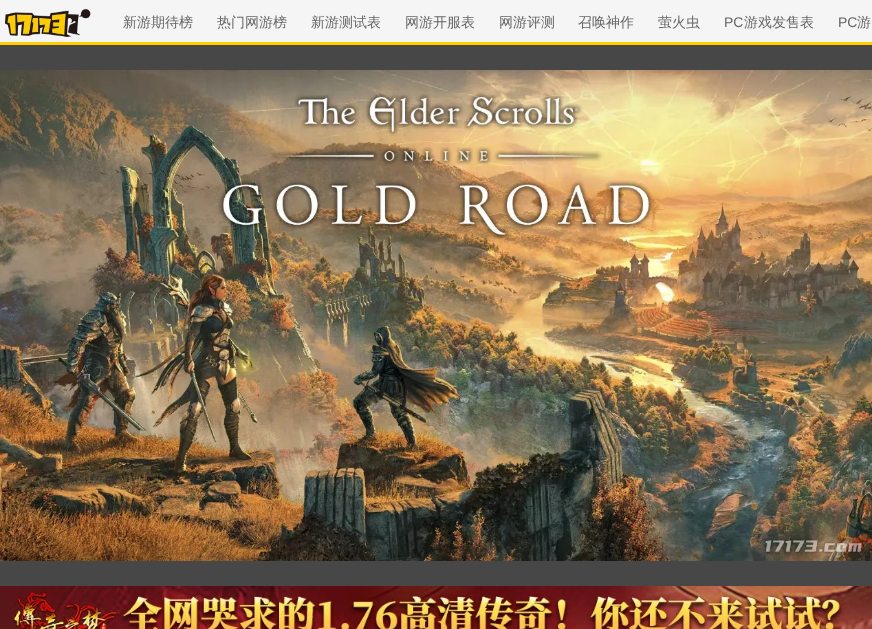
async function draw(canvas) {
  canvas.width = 872
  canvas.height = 629
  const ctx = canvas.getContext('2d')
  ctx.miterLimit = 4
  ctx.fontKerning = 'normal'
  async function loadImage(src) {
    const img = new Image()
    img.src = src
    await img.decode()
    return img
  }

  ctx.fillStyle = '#474747'
  ctx.fillRect(0, 0, 872, 629)
  ctx.fillStyle = '#f5f5f5'
  ctx.fillRect(0, 0, 872, 42)
  ctx.fillStyle = '#ffcd00'
  ctx.fillRect(0, 42, 872, 3)
  ctx.drawImage(await loadImage('image0.png'), 5, 9, 86, 28)
  ctx.font = '500 14px WenQuanYi Zen Hei'
  ctx.fillStyle = '#666'
  ctx.fillText('新游期待榜', 123, 27)
  ctx.fillText('热门网游榜', 217, 27)
  ctx.fillText('新游测试表', 311, 27)
  ctx.fillText('网游开服表', 405, 27)
  ctx.fillText('网游评测', 499, 27)
  ctx.fillText('召唤神作', 578, 27)
  ctx.fillText('萤火虫', 658, 27)
  ctx.font = '14px Liberation Sans'
  ctx.fillText('PC', 724, 27)
  ctx.font = '500 14px WenQuanYi Zen Hei'
  ctx.fillText('游戏发售表', 744, 27)
  ctx.font = '14px Liberation Sans'
  ctx.fillText('PC', 838, 27)
  ctx.font = '500 14px WenQuanYi Zen Hei'
  ctx.fillText('游', 857, 27)
  ctx.drawImage(await loadImage('image1.png'), 0, 70, 872, 491)
  ctx.drawImage(await loadImage('image2.png'), 0, 586, 872, 43)
}

draw(document.querySelector('canvas'))
